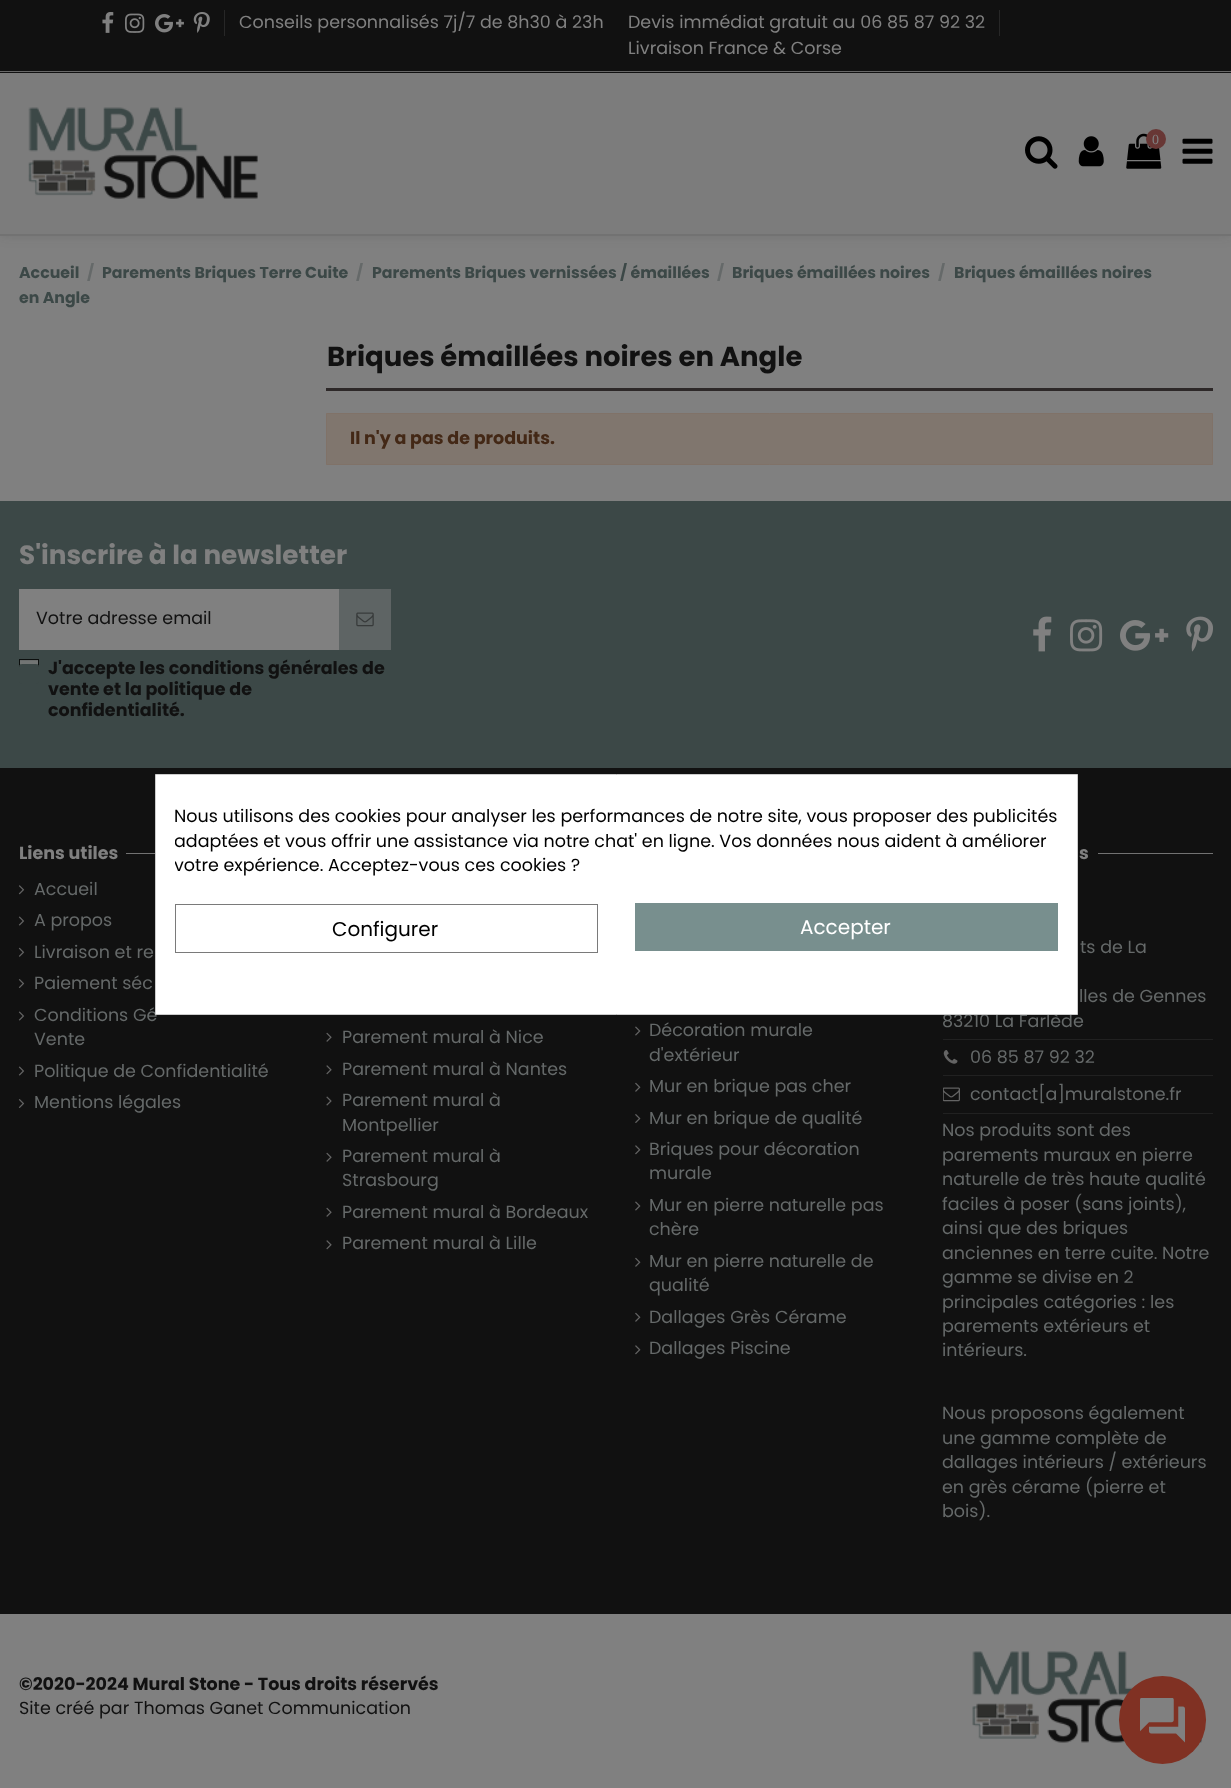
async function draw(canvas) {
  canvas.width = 1231
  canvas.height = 1788
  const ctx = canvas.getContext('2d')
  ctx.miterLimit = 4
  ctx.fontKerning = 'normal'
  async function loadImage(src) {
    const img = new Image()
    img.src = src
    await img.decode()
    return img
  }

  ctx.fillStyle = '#808080'
  ctx.fillRect(0, 0, 1231, 1788)
  ctx.fillStyle = '#1f1d1d2b'
  ctx.filter = 'blur(7px)'
  ctx.beginPath()
  ctx.rect(0, -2, 1231, 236)
  ctx.fill()
  ctx.filter = 'none'
  ctx.fillStyle = '#7c7c7c'
  ctx.fillRect(0, 73, 1231, 161)
  ctx.fillStyle = '#727272'
  ctx.fillRect(0, 234, 1231, 2)
  ctx.fillStyle = '#111'
  ctx.fillRect(0, 0, 1231, 73)
  ctx.fillStyle = '#686868'
  ctx.fillRect(0, 71, 1231, 1)
  ctx.drawImage(await loadImage('image0.png'), 102, 12, 12, 21)
  ctx.drawImage(await loadImage('image1.png'), 125, 13, 20, 20)
  ctx.drawImage(await loadImage('image2.png'), 155, 14, 29, 19)
  ctx.drawImage(await loadImage('image3.png'), 193, 12, 17, 21)
  ctx.fillStyle = '#272727'
  ctx.fillRect(224, 10, 1, 26)
  ctx.font = '17.5px Poppins'
  ctx.fillStyle = '#808080'
  ctx.fillText('Conseils personnalisés 7j/7 de 8h30 à 23h', 239, 28)
  ctx.fillText('Devis immédiat gratuit au 06 85 87 92 32', 628, 28)
  ctx.fillStyle = '#272727'
  ctx.fillRect(999, 10, 1, 26)
  ctx.fillStyle = '#808080'
  ctx.fillText('Livraison France & Corse', 628, 54)
  ctx.drawImage(await loadImage('image4.png'), 28, 107, 230, 92)
  ctx.drawImage(await loadImage('image5.png'), 1025, 136, 33, 33)
  ctx.drawImage(await loadImage('image6.png'), 1078, 136, 26, 31)
  ctx.drawImage(await loadImage('image7.png'), 1126, 133, 36, 36)
  ctx.fillStyle = '#683735'
  ctx.beginPath()
  ctx.arc(1156, 139, 10, 0, 2 * Math.PI)
  ctx.fill()
  ctx.font = '14px Liberation Serif'
  ctx.fillStyle = '#808080'
  ctx.fillText('0', 1152, 144)
  ctx.drawImage(await loadImage('image8.png'), 1182, 138, 31, 26)
  ctx.font = 'bold 15.75px Poppins'
  ctx.fillStyle = '#3c4847'
  ctx.fillText('Accueil', 19, 278)
  ctx.fillStyle = '#656969'
  ctx.fillText('/', 87, 278)
  ctx.fillStyle = '#3c4847'
  ctx.fillText('Parements Briques Terre Cuite', 102, 278)
  ctx.fillStyle = '#656969'
  ctx.fillText('/', 356, 278)
  ctx.fillStyle = '#3c4847'
  ctx.fillText('Parements Briques vernissées / émaillées', 372, 278)
  ctx.fillStyle = '#656969'
  ctx.fillText('/', 717, 278)
  ctx.fillStyle = '#3c4847'
  ctx.fillText('Briques émaillées noires', 732, 278)
  ctx.fillStyle = '#656969'
  ctx.fillText('/', 938, 278)
  ctx.fillStyle = '#3c4847'
  ctx.fillText('Briques émaillées noires', 954, 278)
  ctx.fillText('en Angle', 19, 303)
  ctx.fillStyle = '#2d2828'
  ctx.fillRect(326, 388, 887, 3)
  ctx.font = 'bold 27.5px Poppins'
  ctx.fillStyle = '#111'
  ctx.fillText('Briques émaillées noires en Angle', 327, 366)
  ctx.fillStyle = '#80766e'
  ctx.beginPath()
  ctx.rect(326.5, 413.5, 886, 51)
  ctx.fill()
  ctx.strokeStyle = '#807268'
  ctx.stroke()
  ctx.font = 'bold 17.5px Poppins'
  ctx.fillStyle = '#432816'
  ctx.fillText('Il n\'y a pas de produits.', 350, 444)
  ctx.fillStyle = '#111'
  ctx.fillRect(0, 768, 1231, 846)
  ctx.fillStyle = '#3c4847'
  ctx.fillRect(0, 501, 1231, 267)
  ctx.font = 'bold 26.25px Poppins'
  ctx.fillStyle = '#808080'
  ctx.fillText('S\'inscrire à la newsletter', 19, 564)
  ctx.fillRect(19, 589, 320, 61)
  ctx.font = '17.5px Poppins'
  ctx.fillStyle = '#111'
  ctx.fillText('Votre adresse email', 36, 624)
  ctx.fillStyle = '#5e6464'
  ctx.fillRect(339, 589, 52, 61)
  ctx.drawImage(await loadImage('image9.png'), 356, 612, 18, 15)
  ctx.fillStyle = '#727574'
  ctx.fillRect(20, 661, 18, 4)
  ctx.fillStyle = '#696c6b'
  ctx.fillRect(20, 660, 18, 1)
  ctx.strokeStyle = '#0c0f0e'
  ctx.strokeRect(19.5, 659.5, 19, 19)
  ctx.font = 'bold 17.5px Poppins'
  ctx.fillStyle = '#111'
  ctx.fillText('J\'accepte les conditions générales de', 48, 674)
  ctx.fillText('vente et la politique de', 48, 695)
  ctx.fillText('confidentialité.', 48, 716)
  ctx.fillStyle = '#3c4847'
  ctx.beginPath()
  ctx.roundRect(19.5, 664.5, 19, 19, 2)
  ctx.fill()
  ctx.strokeStyle = '#3c4847'
  ctx.stroke()
  ctx.drawImage(await loadImage('image10.png'), 1033, 616, 19, 36)
  ctx.drawImage(await loadImage('image11.png'), 1070, 619, 33, 33)
  ctx.drawImage(await loadImage('image12.png'), 1120, 620, 49, 31)
  ctx.drawImage(await loadImage('image13.png'), 1186, 616, 27, 36)
  ctx.fillStyle = '#808080'
  ctx.fillText('Liens utiles', 19, 859)
  ctx.fillStyle = '#727272'
  ctx.fillRect(126, 853, 29, 1)
  ctx.drawImage(await loadImage('image14.png'), 18, 885, 7, 10)
  ctx.font = '17.5px Poppins'
  ctx.fillStyle = '#656969'
  ctx.fillText('Accueil', 34, 895)
  ctx.drawImage(await loadImage('image15.png'), 18, 916, 7, 10)
  ctx.fillText('A propos', 34, 926)
  ctx.drawImage(await loadImage('image16.png'), 18, 947, 7, 10)
  ctx.fillText('Livraison et re', 34, 958)
  ctx.drawImage(await loadImage('image17.png'), 18, 979, 7, 9)
  ctx.fillText('Paiement séc', 34, 989)
  ctx.drawImage(await loadImage('image15.png'), 18, 1011, 7, 10)
  ctx.fillText('Conditions Gé', 34, 1021)
  ctx.fillText('Vente', 34, 1045)
  ctx.drawImage(await loadImage('image15.png'), 18, 1066, 7, 10)
  ctx.fillText('Politique de Confidentialité', 34, 1077)
  ctx.drawImage(await loadImage('image17.png'), 18, 1099, 7, 9)
  ctx.fillText('Mentions légales', 34, 1108)
  ctx.drawImage(await loadImage('image18.png'), 326, 1032, 6, 10)
  ctx.fillText('Parement mural à Nice', 342, 1043)
  ctx.drawImage(await loadImage('image19.png'), 326, 1065, 6, 10)
  ctx.fillText('Parement mural à Nantes', 342, 1075)
  ctx.drawImage(await loadImage('image20.png'), 326, 1096, 6, 10)
  ctx.fillText('Parement mural à', 342, 1106)
  ctx.fillText('Montpellier', 342, 1131)
  ctx.drawImage(await loadImage('image18.png'), 326, 1152, 6, 10)
  ctx.fillText('Parement mural à', 342, 1162)
  ctx.fillText('Strasbourg', 342, 1186)
  ctx.drawImage(await loadImage('image18.png'), 326, 1207, 6, 10)
  ctx.fillText('Parement mural à Bordeaux', 342, 1218)
  ctx.drawImage(await loadImage('image19.png'), 326, 1240, 6, 10)
  ctx.fillText('Parement mural à Lille', 342, 1249)
  ctx.drawImage(await loadImage('image21.png'), 635, 1026, 6, 10)
  ctx.fillText('Décoration murale', 649, 1036)
  ctx.fillText('d\'extérieur', 649, 1061)
  ctx.drawImage(await loadImage('image22.png'), 635, 1082, 6, 10)
  ctx.fillText('Mur en brique pas cher', 649, 1092)
  ctx.drawImage(await loadImage('image23.png'), 635, 1114, 6, 9)
  ctx.fillText('Mur en brique de qualité', 649, 1124)
  ctx.drawImage(await loadImage('image24.png'), 635, 1145, 6, 10)
  ctx.fillText('Briques pour décoration', 649, 1155)
  ctx.fillText('murale', 649, 1179)
  ctx.drawImage(await loadImage('image21.png'), 635, 1201, 6, 10)
  ctx.fillText('Mur en pierre naturelle pas', 649, 1211)
  ctx.fillText('chère', 649, 1235)
  ctx.drawImage(await loadImage('image22.png'), 635, 1257, 6, 10)
  ctx.fillText('Mur en pierre naturelle de', 649, 1267)
  ctx.fillText('qualité', 649, 1291)
  ctx.drawImage(await loadImage('image22.png'), 635, 1312, 6, 10)
  ctx.fillText('Dallages Grès Cérame', 649, 1323)
  ctx.drawImage(await loadImage('image24.png'), 635, 1345, 6, 10)
  ctx.fillText('Dallages Piscine', 649, 1354)
  ctx.font = 'bold 17.5px Poppins'
  ctx.fillStyle = '#808080'
  ctx.fillText('s', 1079, 859)
  ctx.fillStyle = '#727272'
  ctx.fillRect(1098, 853, 115, 1)
  ctx.font = '17.5px Poppins'
  ctx.fillStyle = '#656969'
  ctx.fillText('ts de La', 1080, 953)
  ctx.fillText('lles de Gennes', 1079, 1002)
  ctx.fillText('83210 La Farlède', 942, 1027)
  ctx.fillStyle = '#212121'
  ctx.fillRect(943, 1039, 270, 1)
  ctx.drawImage(await loadImage('image25.png'), 943, 1050, 15, 14)
  ctx.fillStyle = '#656969'
  ctx.fillText('06 85 87 92 32', 970, 1063)
  ctx.fillStyle = '#212121'
  ctx.fillRect(943, 1075, 270, 1)
  ctx.drawImage(await loadImage('image26.png'), 943, 1087, 17, 15)
  ctx.fillStyle = '#656969'
  ctx.fillText('contact[a]muralstone.fr', 970, 1100)
  ctx.fillStyle = '#212121'
  ctx.fillRect(943, 1113, 270, 1)
  ctx.fillStyle = '#656969'
  ctx.fillText('Nos produits sont des', 942, 1136)
  ctx.fillText('parements muraux en pierre', 942, 1161)
  ctx.fillText('naturelle de très haute qualité', 942, 1185)
  ctx.fillText('faciles à poser (sans joints),', 942, 1210)
  ctx.fillText('ainsi que des briques', 942, 1234)
  ctx.fillText('anciennes en terre cuite. Notre', 942, 1259)
  ctx.fillText('gamme se divise en 2', 942, 1283)
  ctx.fillText('principales catégories : les', 942, 1308)
  ctx.fillText('parements extérieurs et', 942, 1332)
  ctx.fillText('intérieurs.', 942, 1356)
  ctx.fillText('Nous proposons également', 942, 1419)
  ctx.fillText('une gamme complète de', 942, 1444)
  ctx.fillText('dallages intérieurs / extérieurs', 942, 1468)
  ctx.fillText('en grès cérame (pierre et', 942, 1493)
  ctx.fillText('bois).', 942, 1517)
  ctx.font = 'bold 17.5px Poppins'
  ctx.fillStyle = '#111'
  ctx.fillText('©2020-2024 Mural Stone - Tous droits réservés', 19, 1690)
  ctx.font = '17.5px Poppins'
  ctx.fillText('Site créé par', 19, 1714)
  ctx.fillText('Thomas Ganet Communication', 134, 1714)
  ctx.drawImage(await loadImage('image27.png'), 972, 1651, 230, 92)
  ctx.fillStyle = '#fff'
  ctx.beginPath()
  ctx.rect(155.5, 774.5, 922, 240)
  ctx.fill()
  ctx.strokeStyle = '#ccc'
  ctx.stroke()
  ctx.fillStyle = '#000'
  ctx.fillText('Nous utilisons des cookies pour analyser les performances de notre site, vous proposer des publicités', 174, 822)
  ctx.save()
  ctx.beginPath()
  ctx.rect(175, 805, 883, 73)
  ctx.clip()
  ctx.fillText('adaptées et vous offrir une assistance via notre chat\' en ligne. Vos données nous aident à améliorer', 174, 847)
  ctx.fillText('votre expérience. Acceptez-vous ces cookies ?', 174, 871)
  ctx.restore()
  ctx.strokeStyle = '#7a7a7a'
  ctx.strokeRect(175.5, 904.5, 422, 48)
  ctx.font = '20px Poppins'
  ctx.fillText('Configurer', 332, 936)
  ctx.fillStyle = '#788f8e'
  ctx.fillRect(635, 903, 423, 48)
  ctx.fillStyle = '#fff'
  ctx.fillText('Accepter', 800, 934)
  ctx.fillStyle = '#803123'
  ctx.beginPath()
  ctx.roundRect(1119, 1676, 87, 88, 43.5)
  ctx.fill()
  ctx.drawImage(await loadImage('image28.png'), 1140, 1698, 45, 45)
}

draw(document.querySelector('canvas'))
